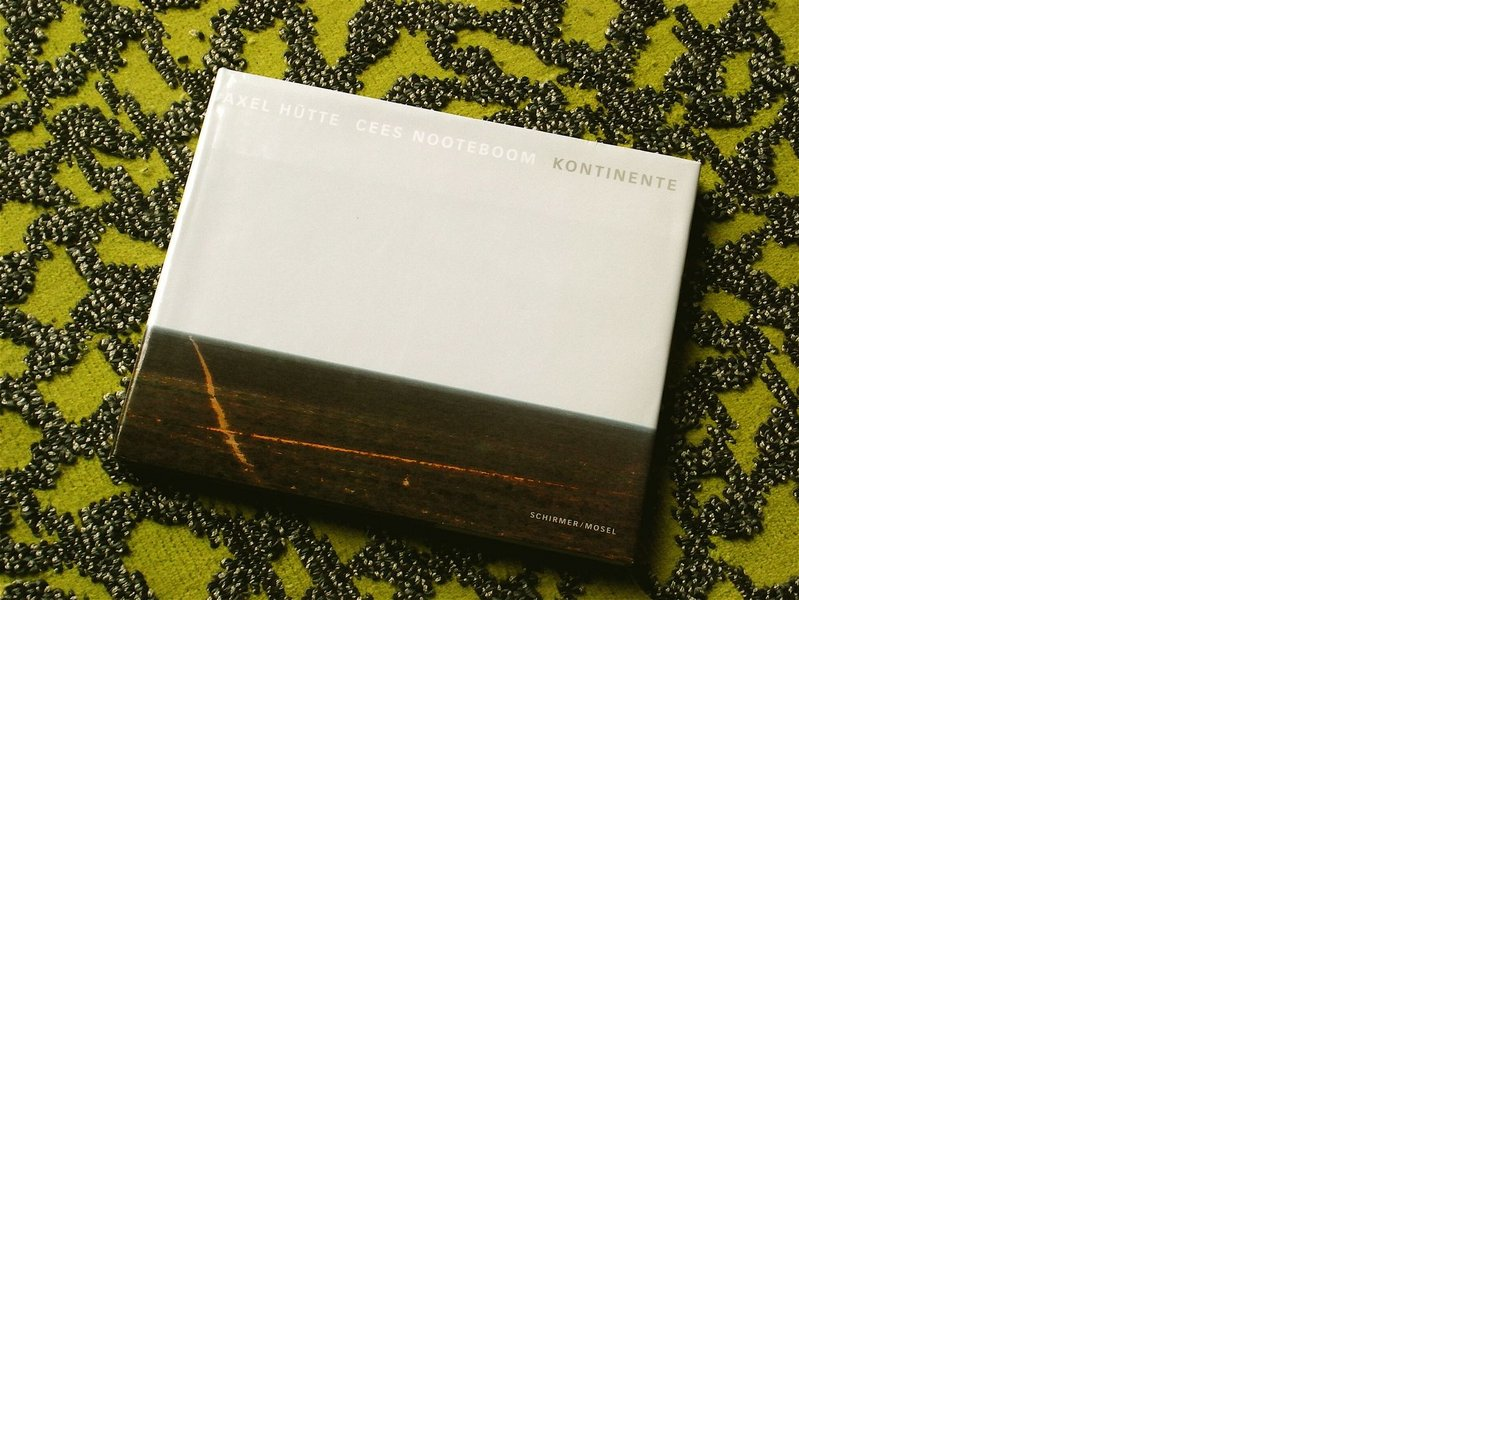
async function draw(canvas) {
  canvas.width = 1511
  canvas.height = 1439
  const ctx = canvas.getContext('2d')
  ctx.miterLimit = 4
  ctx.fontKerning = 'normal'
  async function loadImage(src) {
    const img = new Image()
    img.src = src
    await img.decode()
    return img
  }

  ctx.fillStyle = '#fff'
  ctx.fillRect(0, 0, 1511, 1439)
  ctx.drawImage(await loadImage('image0.png'), 0, 0, 799, 600)
}

draw(document.querySelector('canvas'))
